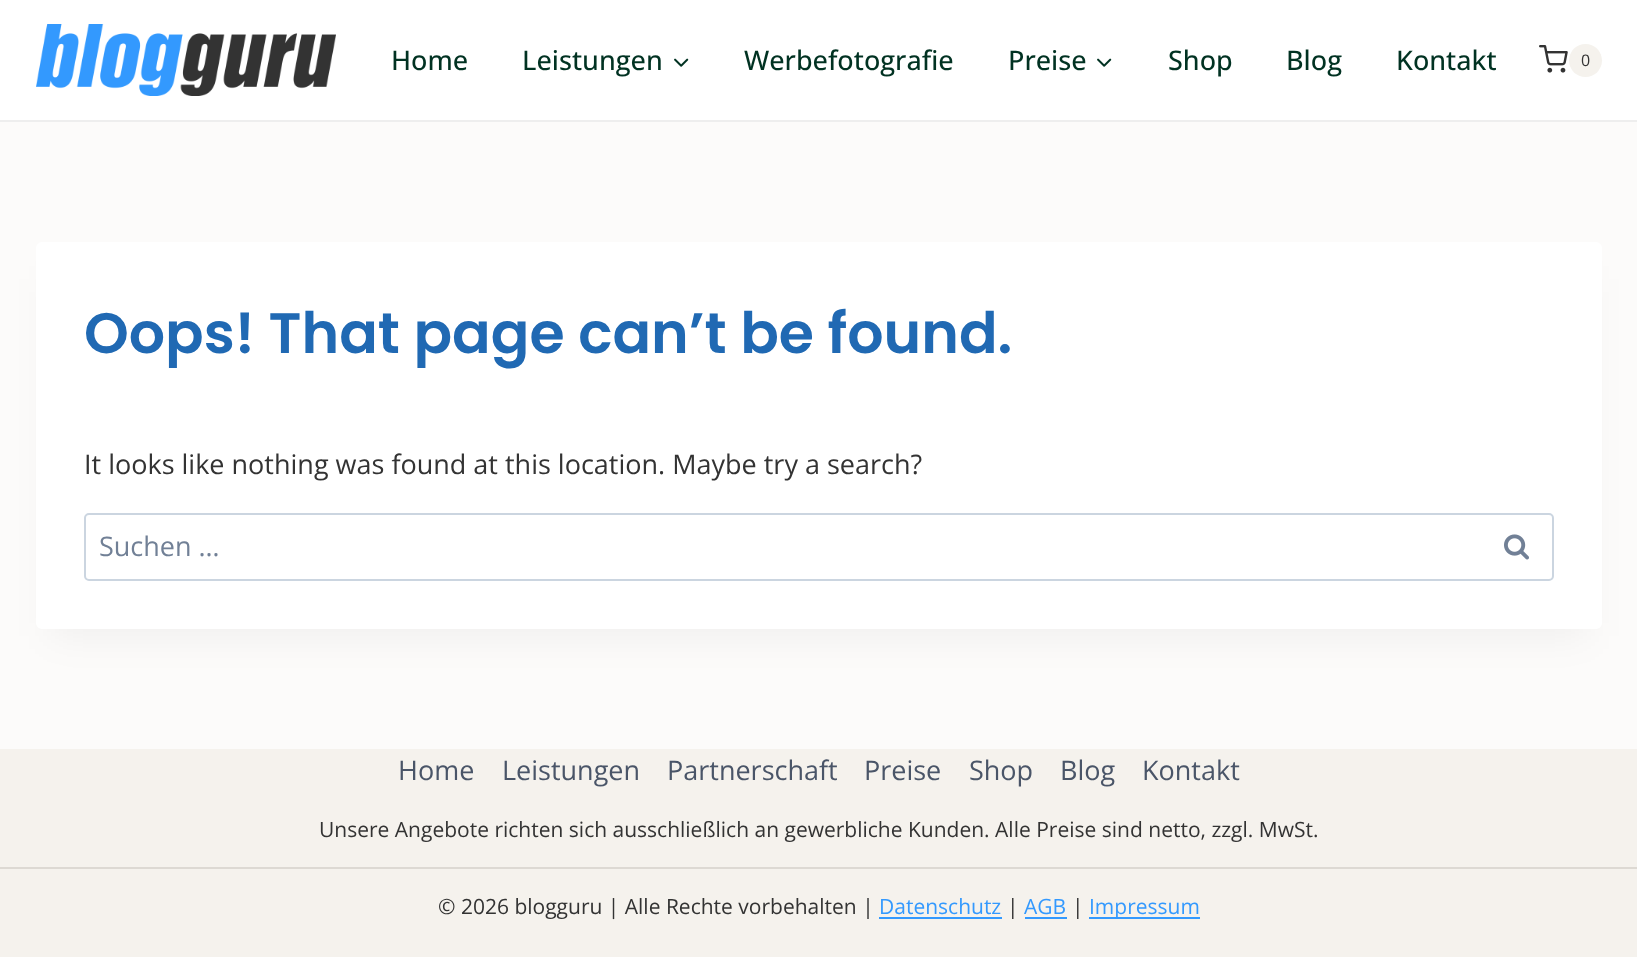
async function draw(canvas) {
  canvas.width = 1637
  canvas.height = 957
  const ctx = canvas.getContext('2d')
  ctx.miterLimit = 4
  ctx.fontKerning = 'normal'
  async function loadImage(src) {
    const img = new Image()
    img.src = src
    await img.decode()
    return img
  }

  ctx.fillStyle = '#fcfbfa'
  ctx.fillRect(0, 0, 1637, 957)
  ctx.fillStyle = '#fff'
  ctx.fillRect(0, 0, 1637, 120)
  ctx.fillStyle = '#eee'
  ctx.fillRect(0, 120, 1637, 2)
  ctx.drawImage(await loadImage('image0.png'), 36, 24, 300, 72)
  ctx.font = '500 27px Open Sans'
  ctx.fillStyle = '#013222'
  ctx.fillText('Home', 391, 70)
  ctx.fillText('Leistungen', 522, 70)
  ctx.drawImage(await loadImage('image1.png'), 674, 58, 15, 9)
  ctx.fillText('Werbefotografie', 744, 70)
  ctx.fillText('Preise', 1008, 70)
  ctx.drawImage(await loadImage('image1.png'), 1097, 58, 15, 9)
  ctx.fillText('Shop', 1168, 70)
  ctx.fillText('Blog', 1286, 70)
  ctx.fillText('Kontakt', 1396, 70)
  ctx.drawImage(await loadImage('image2.png'), 1539, 45, 29, 28)
  ctx.fillStyle = '#f5f2ed'
  ctx.beginPath()
  ctx.arc(1585.5, 60.5, 16.5, 0, 2 * Math.PI)
  ctx.fill()
  ctx.font = '16px Open Sans'
  ctx.fillStyle = '#333'
  ctx.fillText('0', 1581, 66)
  ctx.fillStyle = '#0000000d'
  ctx.filter = 'blur(19px)'
  ctx.beginPath()
  ctx.rect(51, 279, 1536, 357)
  ctx.fill()
  ctx.filter = 'none'
  ctx.fillStyle = '#fff'
  ctx.beginPath()
  ctx.roundRect(36, 242, 1566, 387, 6)
  ctx.fill()
  ctx.font = '600 57px Poppins'
  ctx.fillStyle = '#2069b3'
  ctx.fillText('Oops! That page can’t be found.', 84, 353)
  ctx.font = '27px Open Sans'
  ctx.fillStyle = '#333'
  ctx.fillText('It looks like nothing was found at this location. Maybe try a search?', 84, 474)
  ctx.beginPath()
  ctx.roundRect(85, 514, 1468, 66, 4)
  ctx.strokeStyle = '#cbd5e0'
  ctx.lineWidth = 2
  ctx.stroke()
  ctx.fillStyle = '#718096'
  ctx.fillText('Suchen …', 99, 556)
  ctx.drawImage(await loadImage('image3.png'), 1504, 534, 25, 26)
  ctx.fillStyle = '#f5f2ed'
  ctx.fillRect(0, 749, 1637, 208)
  ctx.fillStyle = '#4a5568'
  ctx.fillText('Home', 398, 780)
  ctx.fillText('Leistungen', 502, 780)
  ctx.fillText('Partnerschaft', 667, 780)
  ctx.fillText('Preise', 864, 780)
  ctx.fillText('Shop', 969, 780)
  ctx.fillText('Blog', 1060, 780)
  ctx.fillText('Kontakt', 1142, 780)
  ctx.font = '21px Open Sans'
  ctx.fillStyle = '#333'
  ctx.fillText('Unsere Angebote richten sich ausschließlich an gewerbliche Kunden. Alle Preise sind netto, zzgl. MwSt.', 319, 837)
  ctx.fillStyle = '#ddd9d3'
  ctx.fillRect(0, 867, 1637, 2)
  ctx.fillStyle = '#333'
  ctx.fillText('© 2026 blogguru | Alle Rechte vorbehalten |', 438, 914)
  ctx.fillStyle = '#3399fe'
  ctx.fillText('Datenschutz', 879, 914)
  ctx.fillRect(879, 917, 123, 2)
  ctx.fillStyle = '#333'
  ctx.fillText('|', 1007, 914)
  ctx.fillStyle = '#3399fe'
  ctx.fillText('AGB', 1024, 914)
  ctx.fillRect(1025, 917, 42, 2)
  ctx.fillStyle = '#333'
  ctx.fillText('|', 1072, 914)
  ctx.fillStyle = '#3399fe'
  ctx.fillRect(1089, 917, 111, 2)
  ctx.fillText('Impressum', 1089, 914)
}

draw(document.querySelector('canvas'))
